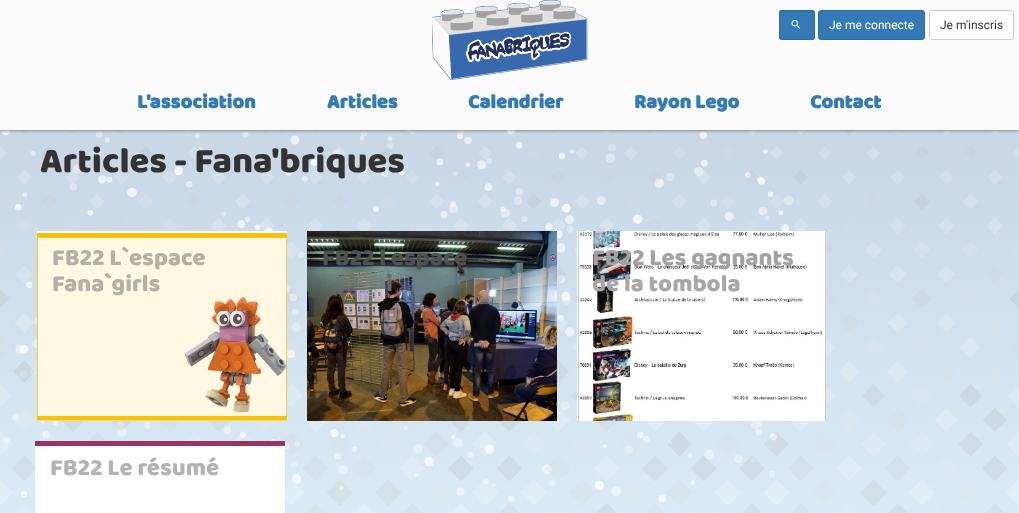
async function draw(canvas) {
  canvas.width = 1019
  canvas.height = 513
  const ctx = canvas.getContext('2d')
  ctx.miterLimit = 4
  ctx.fontKerning = 'normal'
  async function loadImage(src) {
    const img = new Image()
    img.src = src
    await img.decode()
    return img
  }
  let gradient

  ctx.fillStyle = '#fff'
  ctx.fillRect(0, 0, 1019, 513)
  gradient = ctx.createLinearGradient(0, 513, 0, 0)
  gradient.addColorStop(0, '#daebf5')
  gradient.addColorStop(0.84, '#c6d4e4')
  ctx.fillStyle = gradient
  ctx.fillRect(0, 130, 1019, 383)
  ctx.drawImage(await loadImage('image7.png'), 2, 130, 792, 372)
  ctx.drawImage(await loadImage('image0.png'), 0, 130, 1019, 383)
  ctx.fillStyle = '#0000003d'
  ctx.filter = 'blur(1px)'
  ctx.beginPath()
  ctx.rect(0, 1, 1019, 130)
  ctx.fill()
  ctx.filter = 'none'
  ctx.fillStyle = '#0000001f'
  ctx.filter = 'blur(1.5px)'
  ctx.beginPath()
  ctx.rect(0, 1, 1019, 130)
  ctx.fill()
  ctx.filter = 'none'
  ctx.fillStyle = '#fafafa'
  ctx.fillRect(0, 0, 1019, 130)
  ctx.fillStyle = '#337ab7'
  ctx.beginPath()
  ctx.roundRect(779, 10, 36, 30, 3)
  ctx.fill()
  ctx.fillStyle = '#2f71a9'
  ctx.beginPath()
  ctx.moveTo(782, 12)
  ctx.lineTo(810.5, 12)
  ctx.bezierCurveTo(814.5, 12, 814, 14.5, 814, 18)
  ctx.lineTo(814, 13)
  ctx.bezierCurveTo(814, 12, 813, 11, 812, 11)
  ctx.lineTo(782, 11)
  ctx.bezierCurveTo(781, 11, 780, 12, 780, 13)
  ctx.closePath()
  ctx.fill()
  ctx.beginPath()
  ctx.roundRect(779.5, 10.5, 35, 29, 2.5)
  ctx.strokeStyle = '#2e6da4'
  ctx.stroke()
  ctx.drawImage(await loadImage('image1.png'), 791, 20, 10, 9)
  ctx.fillStyle = '#337ab7'
  ctx.beginPath()
  ctx.roundRect(818.5, 10.5, 106, 29, 2.5)
  ctx.fill()
  ctx.stroke()
  ctx.font = '12px Roboto'
  ctx.fillStyle = '#fff'
  ctx.fillText('Je me connecte', 829, 29)
  ctx.beginPath()
  ctx.roundRect(929.5, 10.5, 84, 29, 2.5)
  ctx.fill()
  ctx.strokeStyle = '#ccc'
  ctx.stroke()
  ctx.fillStyle = '#333'
  ctx.fillText('Je m\'inscris', 940, 29)
  ctx.drawImage(await loadImage('image2.png'), 432, 0, 156, 80)
  ctx.font = 'bold 20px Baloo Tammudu'
  ctx.fillStyle = '#337ab7'
  ctx.fillText('L\'association', 137, 108)
  ctx.fillText('Articles', 327, 108)
  ctx.fillText('Calendrier', 468, 108)
  ctx.fillText('Rayon Lego', 634, 108)
  ctx.fillText('Contact', 810, 108)
  ctx.font = '36px Baloo Tammudu'
  ctx.fillStyle = '#333'
  ctx.fillText('Articles - Fana\'briques', 40, 172)
  ctx.drawImage(await loadImage('image3.png'), 37, 231, 250, 190)
  ctx.font = '24px Baloo Tammudu'
  ctx.fillStyle = '#b3b0a5'
  ctx.fillText('FB22 L`espace', 52, 265)
  ctx.fillText('Fana`girls', 52, 291)
  ctx.drawImage(await loadImage('image4.png'), 307, 231, 250, 190)
  ctx.fillStyle = '#4f5250'
  ctx.fillText('FB22 l espace', 322, 265)
  ctx.fillStyle = '#666b6c'
  ctx.fillText('i', 386, 291)
  ctx.drawImage(await loadImage('image5.png'), 577, 231, 250, 190)
  ctx.fillStyle = '#a2a2a2'
  ctx.fillText('FB22 Les gagnants', 592, 265)
  ctx.fillStyle = '#a7a7a8'
  ctx.fillText('de la tombola', 592, 291)
  ctx.drawImage(await loadImage('image6.png'), 35, 441, 250, 72)
  ctx.fillStyle = '#b3b3b3'
  ctx.fillText('FB22 Le résumé', 50, 475)
}

draw(document.querySelector('canvas'))
